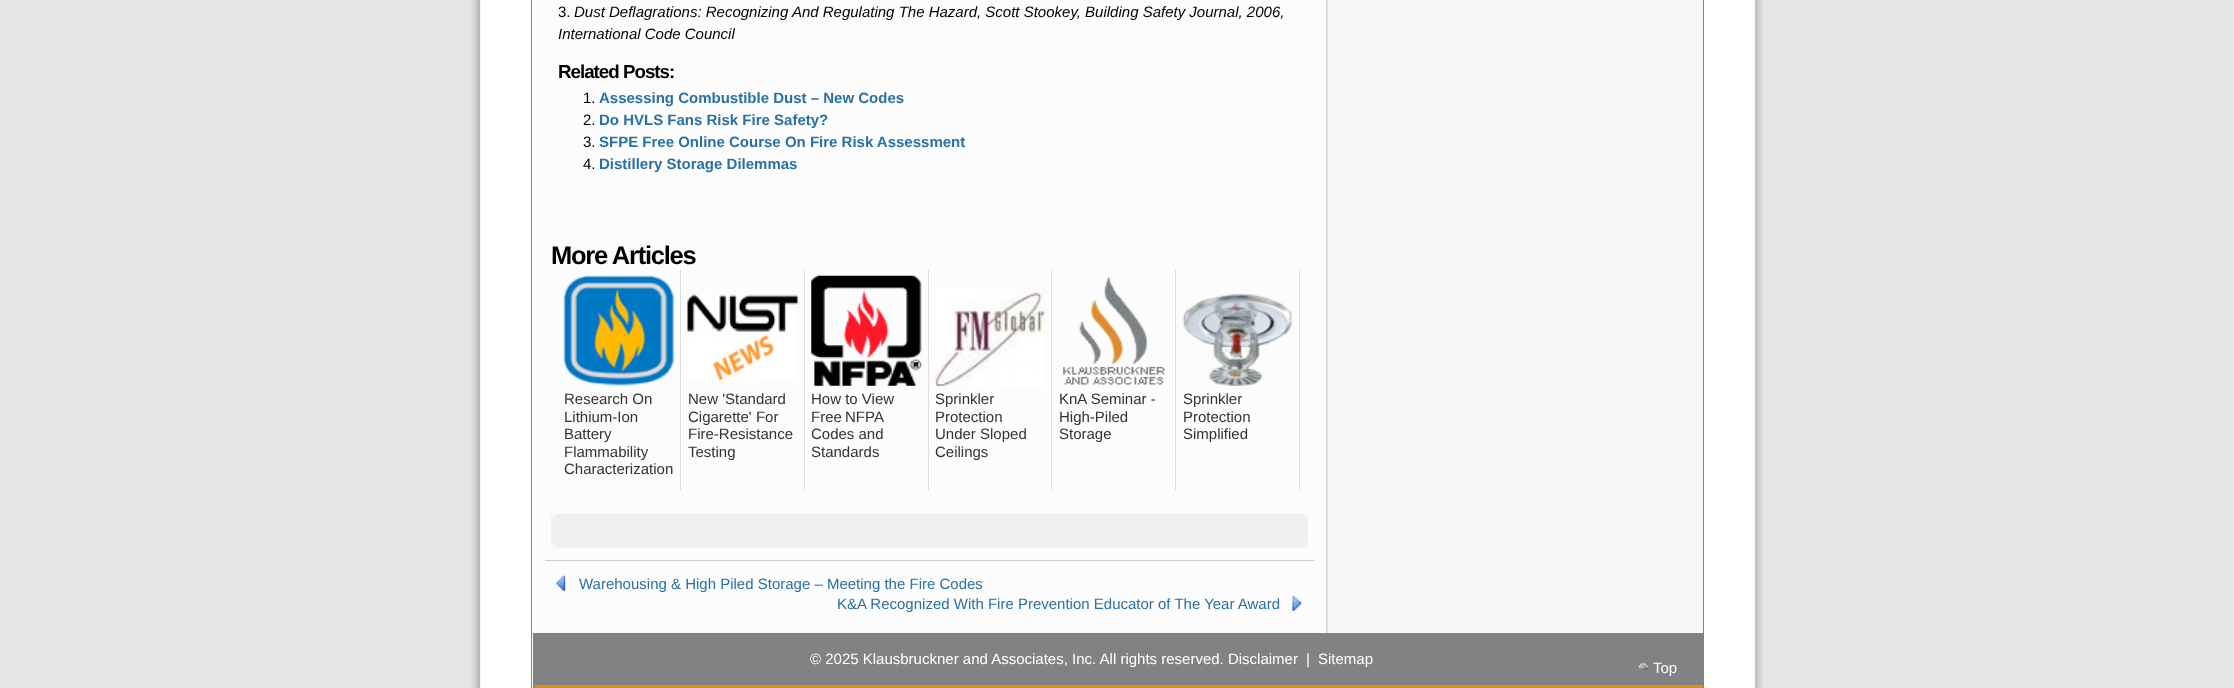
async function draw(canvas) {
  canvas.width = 2234
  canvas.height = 688
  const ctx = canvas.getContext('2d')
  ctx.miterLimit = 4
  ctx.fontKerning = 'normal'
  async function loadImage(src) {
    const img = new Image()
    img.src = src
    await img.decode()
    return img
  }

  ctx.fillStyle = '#e5e5e5'
  ctx.fillRect(0, 0, 2234, 688)
  ctx.drawImage(await loadImage('image0.png'), 471, 0, 1292, 688)
  ctx.strokeStyle = '#808284'
  ctx.strokeRect(531.5, -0.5, 1172, 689)
  ctx.drawImage(await loadImage('image1.png'), 1326, 0, 377, 633)
  ctx.fillStyle = '#fcfcfc'
  ctx.fillRect(533, 0, 793, 633)
  ctx.font = '15px Liberation Sans'
  ctx.fillStyle = '#000'
  ctx.fillText('3.', 558, 17)
  ctx.font = 'italic 15px Liberation Sans'
  ctx.fillText('Dust Deflagrations: Recognizing And Regulating The Hazard, Scott Stookey, Building Safety Journal, 2006,', 574, 17)
  ctx.fillText('International Code Council', 558, 39)
  ctx.letterSpacing = '-1px'
  ctx.font = 'bold 18.75px Liberation Sans'
  ctx.fillText('Related Posts:', 558, 78)
  ctx.letterSpacing = '0px'
  ctx.font = '15px Liberation Sans'
  ctx.fillText('1.', 583, 103)
  ctx.font = 'bold 15px Liberation Sans'
  ctx.fillStyle = '#2970a6'
  ctx.fillText('Assessing Combustible Dust – New Codes', 599, 103)
  ctx.font = '15px Liberation Sans'
  ctx.fillStyle = '#000'
  ctx.fillText('2.', 583, 125)
  ctx.font = 'bold 15px Liberation Sans'
  ctx.fillStyle = '#2970a6'
  ctx.fillText('Do HVLS Fans Risk Fire Safety?', 599, 125)
  ctx.font = '15px Liberation Sans'
  ctx.fillStyle = '#000'
  ctx.fillText('3.', 583, 147)
  ctx.font = 'bold 15px Liberation Sans'
  ctx.fillStyle = '#2970a6'
  ctx.fillText('SFPE Free Online Course On Fire Risk Assessment', 599, 147)
  ctx.font = '15px Liberation Sans'
  ctx.fillStyle = '#000'
  ctx.fillText('4.', 583, 169)
  ctx.font = 'bold 15px Liberation Sans'
  ctx.fillStyle = '#2970a6'
  ctx.fillText('Distillery Storage Dilemmas', 599, 169)
  ctx.letterSpacing = '-1.25px'
  ctx.font = 'bold 25.5px Liberation Sans'
  ctx.fillStyle = '#000'
  ctx.fillText('More Articles', 551, 264)
  ctx.fillStyle = '#ddd'
  ctx.fillRect(680, 270, 1, 220)
  ctx.drawImage(await loadImage('image2.png'), 563, 275, 111, 111)
  ctx.letterSpacing = '0px'
  ctx.font = '15px Liberation Sans'
  ctx.fillStyle = '#333'
  ctx.fillText('Research On', 564, 404)
  ctx.fillText('Lithium-Ion', 564, 422)
  ctx.fillText('Battery', 564, 439)
  ctx.fillText('Flammability', 564, 457)
  ctx.fillText('Characterization', 564, 474)
  ctx.fillStyle = '#ddd'
  ctx.fillRect(804, 270, 1, 220)
  ctx.drawImage(await loadImage('image3.png'), 687, 294, 111, 88)
  ctx.fillStyle = '#333'
  ctx.fillText('New \'Standard', 688, 404)
  ctx.fillText('Cigarette\' For', 688, 422)
  ctx.fillText('Fire-Resistance', 688, 439)
  ctx.fillText('Testing', 688, 457)
  ctx.fillStyle = '#ddd'
  ctx.fillRect(928, 270, 1, 220)
  ctx.drawImage(await loadImage('image4.png'), 811, 275, 111, 111)
  ctx.fillStyle = '#333'
  ctx.fillText('How to View', 811, 404)
  ctx.wordSpacing = '-1px'
  ctx.fillText('Free NFPA', 811, 422)
  ctx.wordSpacing = '0px'
  ctx.fillText('Codes and', 811, 439)
  ctx.fillText('Standards', 811, 457)
  ctx.fillStyle = '#ddd'
  ctx.fillRect(1051, 270, 1, 220)
  ctx.drawImage(await loadImage('image5.png'), 935, 288, 110, 98)
  ctx.fillStyle = '#333'
  ctx.fillText('Sprinkler', 935, 404)
  ctx.fillText('Protection', 935, 422)
  ctx.fillText('Under Sloped', 935, 439)
  ctx.fillText('Ceilings', 935, 457)
  ctx.fillStyle = '#ddd'
  ctx.fillRect(1175, 270, 1, 220)
  ctx.drawImage(await loadImage('image6.png'), 1063, 276, 102, 109)
  ctx.fillStyle = '#333'
  ctx.fillText('KnA Seminar -', 1059, 404)
  ctx.fillText('High-Piled', 1059, 422)
  ctx.fillText('Storage', 1059, 439)
  ctx.fillStyle = '#ddd'
  ctx.fillRect(1299, 270, 1, 220)
  ctx.drawImage(await loadImage('image7.png'), 1182, 276, 111, 110)
  ctx.fillStyle = '#333'
  ctx.fillText('Sprinkler', 1183, 404)
  ctx.fillText('Protection', 1183, 422)
  ctx.fillText('Simplified', 1183, 439)
  ctx.fillStyle = '#edeff0'
  ctx.fillRect(551, 514, 757, 34)
  ctx.drawImage(await loadImage('image8.png'), 551, 514, 757, 33)
  ctx.fillStyle = '#ccc'
  ctx.fillRect(545, 560, 769, 1)
  ctx.drawImage(await loadImage('image9.png'), 556, 575, 10, 16)
  ctx.fillStyle = '#2970a6'
  ctx.fillText('Warehousing & High Piled Storage – Meeting the Fire Codes', 579, 589)
  ctx.drawImage(await loadImage('image10.png'), 1292, 595, 10, 16)
  ctx.fillText('K&A Recognized With Fire Prevention Educator of The Year Award', 837, 609)
  ctx.strokeRect(533.5, 633.5, 1169, 54)
  ctx.fillStyle = '#e38c1a'
  ctx.fillRect(535, 685, 1168, 3)
  ctx.strokeRect(534.5, 634.5, 1169, 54)
  ctx.fillStyle = '#808284'
  ctx.fillRect(535, 635, 1167, 50)
  ctx.fillStyle = '#fff'
  ctx.fillText('© 2025 Klausbruckner and Associates, Inc. All rights reserved. Disclaimer', 810, 664)
  ctx.fillText('|', 1306, 664)
  ctx.fillText('Sitemap', 1318, 664)
  ctx.drawImage(await loadImage('image11.png'), 1638, 663, 10, 7)
  ctx.fillText('Top', 1653, 673)
}

draw(document.querySelector('canvas'))
